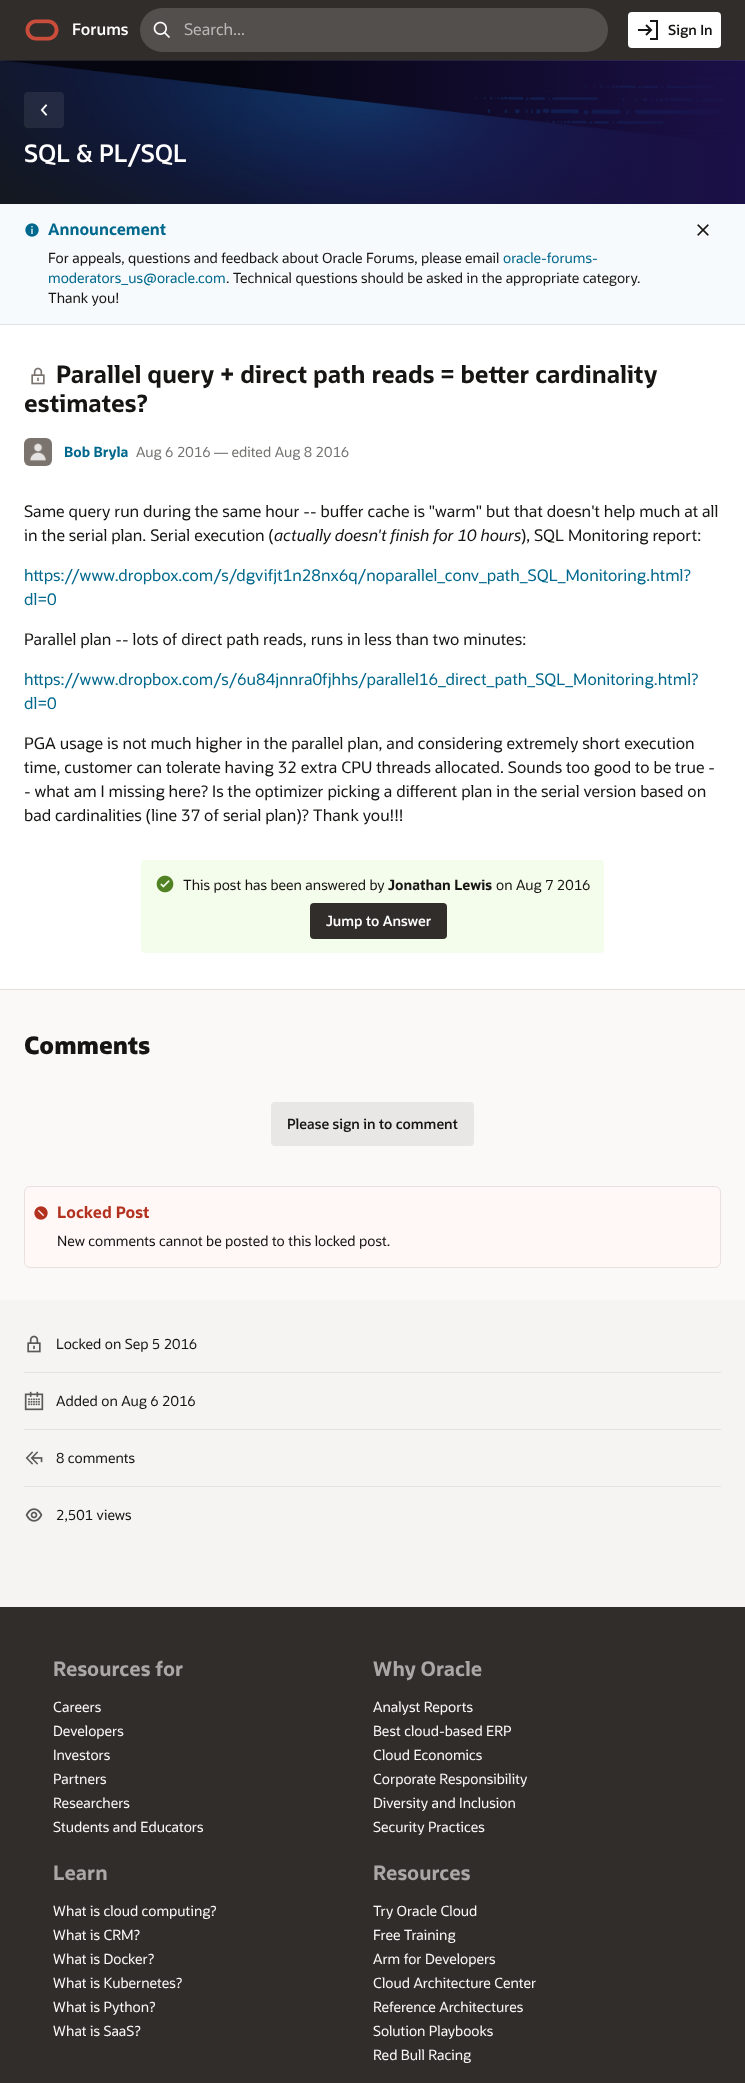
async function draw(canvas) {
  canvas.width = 745
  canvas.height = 2083
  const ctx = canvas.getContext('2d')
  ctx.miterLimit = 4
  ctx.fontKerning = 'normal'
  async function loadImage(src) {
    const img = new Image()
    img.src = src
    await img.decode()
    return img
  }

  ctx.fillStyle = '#312d2a'
  ctx.fillRect(0, 0, 745, 2083)
  ctx.drawImage(await loadImage('image3.png'), 0, 60, 745, 144)
  ctx.strokeStyle = '#ffffff1a'
  ctx.strokeRect(-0.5, -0.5, 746, 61)
  ctx.drawImage(await loadImage('image0.png'), 25, 19, 34, 22)
  ctx.font = '600 16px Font'
  ctx.fillStyle = '#fff'
  ctx.fillText('Forums', 72, 35)
  ctx.fillStyle = '#524f4c'
  ctx.beginPath()
  ctx.roundRect(140, 8, 468, 44, 22)
  ctx.fill()
  ctx.drawImage(await loadImage('image1.png'), 153, 21, 17, 17)
  ctx.font = '16px Font'
  ctx.fillStyle = '#bab9b7'
  ctx.fillText('Search...', 184, 35)
  ctx.fillStyle = '#fff'
  ctx.beginPath()
  ctx.roundRect(628, 12, 93, 36, 4)
  ctx.fill()
  ctx.drawImage(await loadImage('image2.png'), 638, 20, 20, 20)
  ctx.font = '600 14px Font'
  ctx.fillStyle = '#161513'
  ctx.fillText('Sign In', 668, 35)
  ctx.fillStyle = '#fbf9f814'
  ctx.beginPath()
  ctx.roundRect(24, 92, 40, 36, 4)
  ctx.fill()
  ctx.drawImage(await loadImage('image4.png'), 40, 104, 8, 12)
  ctx.font = '600 24px Font'
  ctx.fillStyle = '#fff'
  ctx.fillText('SQL & PL/SQL', 24, 162)
  ctx.fillStyle = '#fbf9f8'
  ctx.fillRect(0, 990, 745, 310)
  ctx.fillStyle = '#f6fafc'
  ctx.fillRect(0, 204, 745, 120)
  ctx.fillStyle = '#e0e3e5'
  ctx.fillRect(0, 324, 745, 1)
  ctx.drawImage(await loadImage('image5.png'), 25, 223, 14, 14)
  ctx.font = 'bold 16px Font'
  ctx.fillStyle = '#00688c'
  ctx.fillText('Announcement', 48, 235)
  ctx.font = '14px Font'
  ctx.fillStyle = '#161513'
  ctx.fillText('For appeals, questions and feedback about Oracle Forums, please email', 48, 263)
  ctx.fillStyle = '#00688c'
  ctx.fillText('oracle-forums-', 503, 263)
  ctx.fillText('moderators_us@oracle.com', 48, 283)
  ctx.fillStyle = '#161513'
  ctx.fillText('. Technical questions should be asked in the appropriate category.', 226, 283)
  ctx.fillText('Thank you!', 48, 303)
  ctx.drawImage(await loadImage('image6.png'), 697, 224, 12, 12)
  ctx.fillStyle = '#fff'
  ctx.fillRect(0, 325, 745, 664)
  ctx.drawImage(await loadImage('image7.png'), 31, 367, 14, 18)
  ctx.font = 'bold 24px Font'
  ctx.fillStyle = '#161513'
  ctx.fillText('Parallel query + direct path reads = better cardinality', 56, 383)
  ctx.fillText('estimates?', 24, 412)
  ctx.drawImage(await loadImage('image8.png'), 24, 438, 28, 28)
  ctx.font = 'bold 14px Font'
  ctx.fillStyle = '#00688c'
  ctx.fillText('Bob Bryla', 64, 457)
  ctx.font = '14px Font'
  ctx.fillStyle = '#737371'
  ctx.fillText('Aug 6 2016 — edited Aug 8 2016', 136, 457)
  ctx.font = '16px Font'
  ctx.fillStyle = '#161513'
  ctx.fillText('Same query run during the same hour -- buffer cache is "warm" but that doesn\'t help much at all', 24, 517)
  ctx.fillText('in the serial plan. Serial execution (', 24, 541)
  ctx.font = 'italic 16px Font'
  ctx.fillText('actually doesn\'t finish for 10 hours', 274, 541)
  ctx.font = '16px Font'
  ctx.fillText('), SQL Monitoring report:', 521, 541)
  ctx.fillStyle = '#00688c'
  ctx.fillText('https://www.dropbox.com/s/dgvifjt1n28nx6q/noparallel_conv_path_SQL_Monitoring.html?', 24, 581)
  ctx.fillText('dl=0', 24, 605)
  ctx.fillStyle = '#161513'
  ctx.fillText('Parallel plan -- lots of direct path reads, runs in less than two minutes:', 24, 645)
  ctx.fillStyle = '#00688c'
  ctx.fillText('https://www.dropbox.com/s/6u84jnnra0fjhhs/parallel16_direct_path_SQL_Monitoring.html?', 24, 685)
  ctx.fillText('dl=0', 24, 709)
  ctx.fillStyle = '#161513'
  ctx.fillText('PGA usage is not much higher in the parallel plan, and considering extremely short execution', 24, 749)
  ctx.fillText('time, customer can tolerate having 32 extra CPU threads allocated. Sounds too good to be true -', 24, 773)
  ctx.fillText('- what am I missing here? Is the optimizer picking a different plan in the serial version based on', 24, 797)
  ctx.fillText('bad cardinalities (line 37 of serial plan)? Thank you!!!', 24, 821)
  ctx.fillStyle = '#f4fceb'
  ctx.beginPath()
  ctx.roundRect(141, 860, 463, 93, 4)
  ctx.fill()
  ctx.drawImage(await loadImage('image9.png'), 156, 875, 18, 18)
  ctx.font = '14px Font'
  ctx.fillStyle = '#161513'
  ctx.fillText('This post has been answered by', 183, 890)
  ctx.font = 'bold 14px Font'
  ctx.fillText('Jonathan Lewis', 388, 890)
  ctx.font = '14px Font'
  ctx.fillText('on Aug 7 2016', 496, 890)
  ctx.fillStyle = '#312d2a'
  ctx.beginPath()
  ctx.roundRect(310, 903, 137, 36, 4)
  ctx.fill()
  ctx.font = '600 14px Font'
  ctx.fillStyle = '#fff'
  ctx.fillText('Jump to Answer', 326, 926)
  ctx.fillStyle = '#e2e0df'
  ctx.fillRect(0, 989, 745, 1)
  ctx.font = '800 24px Font'
  ctx.fillStyle = '#161513'
  ctx.fillText('Comments', 24, 1054)
  ctx.fillStyle = '#e9e7e6'
  ctx.beginPath()
  ctx.roundRect(271, 1102, 203, 44, 4)
  ctx.fill()
  ctx.font = '600 14px Font'
  ctx.fillStyle = '#161513'
  ctx.fillText('Please sign in to comment', 287, 1129)
  ctx.fillStyle = '#fff8f7'
  ctx.beginPath()
  ctx.roundRect(24.5, 1186.5, 696, 81, 5.5)
  ctx.fill()
  ctx.strokeStyle = '#e8e1e0'
  ctx.stroke()
  ctx.drawImage(await loadImage('image10.png'), 34, 1206, 14, 14)
  ctx.font = 'bold 16px Font'
  ctx.fillStyle = '#b3311f'
  ctx.fillText('Locked Post', 57, 1218)
  ctx.font = '14px Font'
  ctx.fillStyle = '#161513'
  ctx.fillText('New comments cannot be posted to this locked post.', 57, 1246)
  ctx.fillStyle = '#f5f4f2'
  ctx.fillRect(0, 1300, 745, 307)
  ctx.fillStyle = '#e3e2e0'
  ctx.fillRect(24, 1372, 697, 1)
  ctx.drawImage(await loadImage('image11.png'), 27, 1335, 14, 18)
  ctx.fillStyle = '#161513'
  ctx.fillText('Locked on Sep 5 2016', 56, 1349)
  ctx.fillStyle = '#e3e2e0'
  ctx.fillRect(24, 1429, 697, 1)
  ctx.drawImage(await loadImage('image12.png'), 24, 1391, 20, 20)
  ctx.fillStyle = '#161513'
  ctx.fillText('Added on Aug 6 2016', 56, 1406)
  ctx.fillStyle = '#e3e2e0'
  ctx.fillRect(24, 1486, 697, 1)
  ctx.drawImage(await loadImage('image13.png'), 25, 1451, 18, 14)
  ctx.fillStyle = '#161513'
  ctx.fillText('8 comments', 56, 1463)
  ctx.drawImage(await loadImage('image14.png'), 25, 1508, 18, 14)
  ctx.fillText('2,501 views', 56, 1520)
  ctx.font = 'bold 20px Font'
  ctx.fillStyle = '#aaa7a6'
  ctx.fillText('Resources for', 53, 1676)
  ctx.font = '14px Font'
  ctx.fillStyle = '#fbf9f8'
  ctx.fillText('Careers', 53, 1712)
  ctx.fillText('Developers', 53, 1736)
  ctx.fillText('Investors', 53, 1760)
  ctx.fillText('Partners', 53, 1784)
  ctx.fillText('Researchers', 53, 1808)
  ctx.fillText('Students and Educators', 53, 1832)
  ctx.font = 'bold 20px Font'
  ctx.fillStyle = '#aaa7a6'
  ctx.fillText('Why Oracle', 373, 1676)
  ctx.font = '14px Font'
  ctx.fillStyle = '#fbf9f8'
  ctx.fillText('Analyst Reports', 373, 1712)
  ctx.fillText('Best cloud-based ERP', 373, 1736)
  ctx.fillText('Cloud Economics', 373, 1760)
  ctx.fillText('Corporate Responsibility', 373, 1784)
  ctx.fillText('Diversity and Inclusion', 373, 1808)
  ctx.fillText('Security Practices', 373, 1832)
  ctx.font = 'bold 20px Font'
  ctx.fillStyle = '#aaa7a6'
  ctx.fillText('Learn', 53, 1880)
  ctx.font = '14px Font'
  ctx.fillStyle = '#fbf9f8'
  ctx.fillText('What is cloud computing?', 53, 1916)
  ctx.fillText('What is CRM?', 53, 1940)
  ctx.fillText('What is Docker?', 53, 1964)
  ctx.fillText('What is Kubernetes?', 53, 1988)
  ctx.fillText('What is Python?', 53, 2012)
  ctx.fillText('What is SaaS?', 53, 2036)
  ctx.font = 'bold 20px Font'
  ctx.fillStyle = '#aaa7a6'
  ctx.fillText('Resources', 373, 1880)
  ctx.font = '14px Font'
  ctx.fillStyle = '#fbf9f8'
  ctx.fillText('Try Oracle Cloud', 373, 1916)
  ctx.fillText('Free Training', 373, 1940)
  ctx.fillText('Arm for Developers', 373, 1964)
  ctx.fillText('Cloud Architecture Center', 373, 1988)
  ctx.fillText('Reference Architectures', 373, 2012)
  ctx.fillText('Solution Playbooks', 373, 2036)
  ctx.fillText('Red Bull Racing', 373, 2060)
}

draw(document.querySelector('canvas'))
